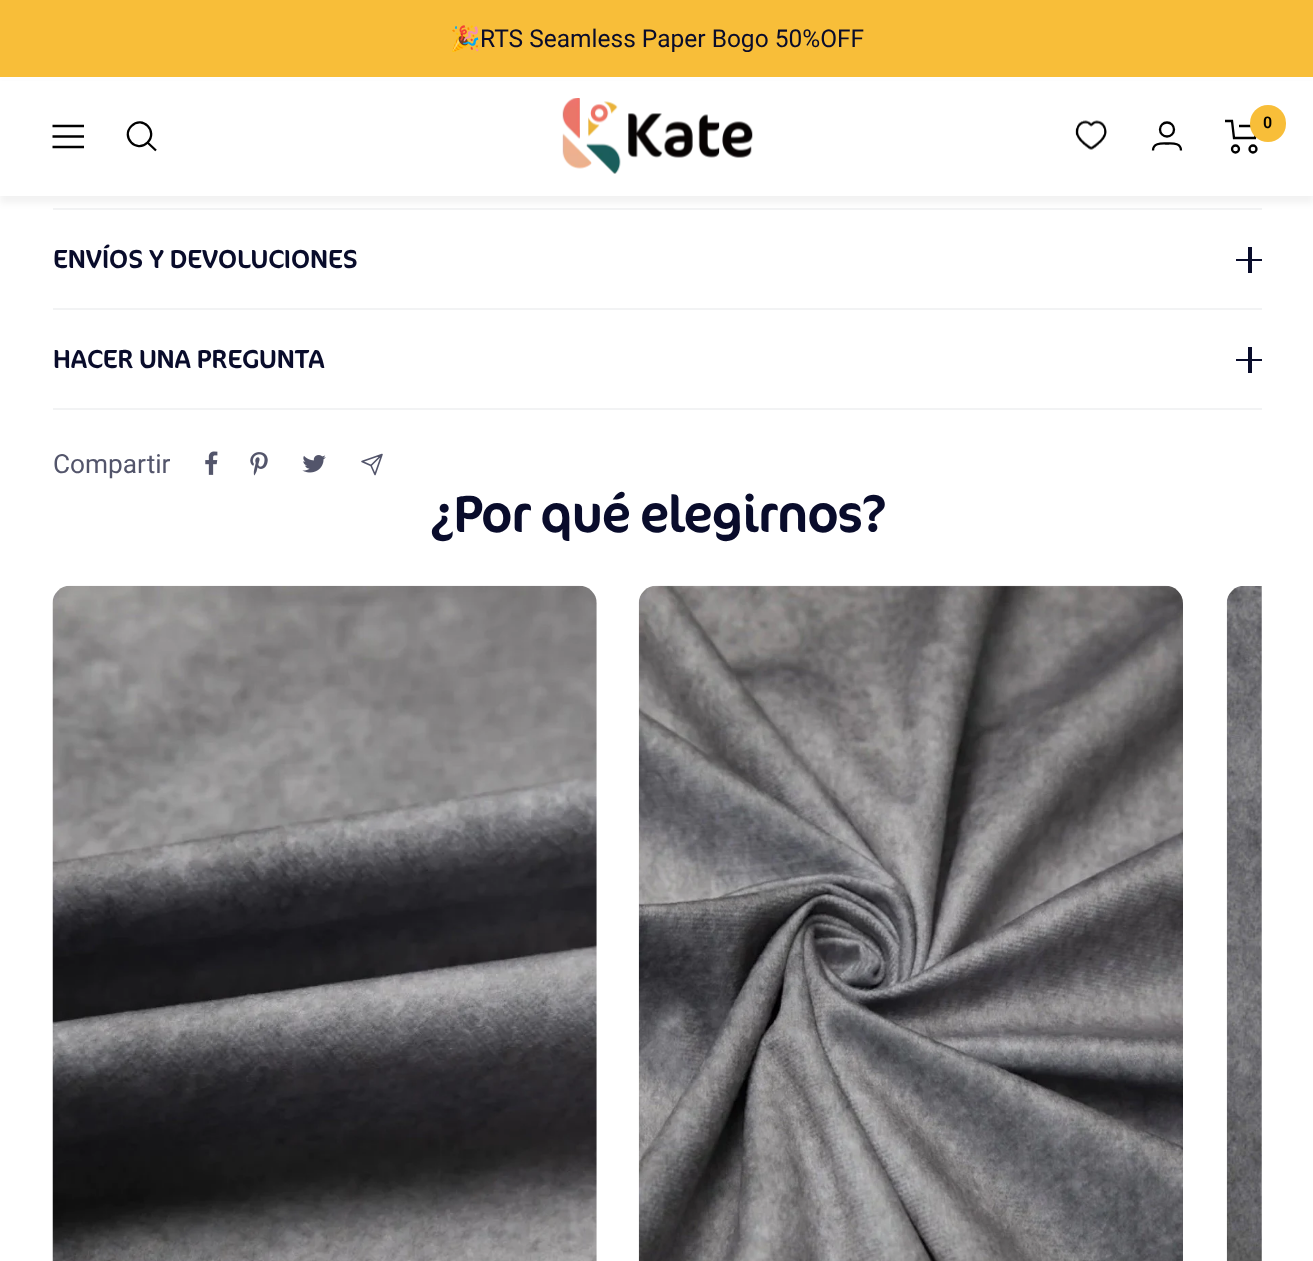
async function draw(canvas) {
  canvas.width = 1313
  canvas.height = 1261
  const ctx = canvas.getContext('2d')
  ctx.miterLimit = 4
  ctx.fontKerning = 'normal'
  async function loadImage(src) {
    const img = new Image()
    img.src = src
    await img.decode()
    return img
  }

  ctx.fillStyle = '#fff'
  ctx.fillRect(0, 0, 1313, 1261)
  ctx.fillStyle = '#f2f3f4'
  ctx.fillRect(53, 208, 1209, 2)
  ctx.fillStyle = '#0000000d'
  ctx.filter = 'blur(3.5px)'
  ctx.beginPath()
  ctx.rect(0, 84, 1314, 119)
  ctx.fill()
  ctx.filter = 'none'
  ctx.fillStyle = '#f8be39'
  ctx.fillRect(0, 0, 1313, 77)
  ctx.font = '24.5px Noto Color Emoji'
  ctx.fillStyle = '#090c2b'
  ctx.fillText('🎉', 450, 47)
  ctx.font = '24.5px Roboto'
  ctx.fillText('RTS Seamless Paper Bogo 50%OFF', 480, 47)
  ctx.fillStyle = '#fff'
  ctx.fillRect(0, 81, 1313, 115)
  ctx.beginPath()
  ctx.moveTo(52.5, 126)
  ctx.lineTo(84, 126)
  ctx.moveTo(52.5, 147)
  ctx.lineTo(84, 147)
  ctx.closePath()
  ctx.moveTo(52.5, 136.5)
  ctx.lineTo(84, 136.5)
  ctx.closePath()
  ctx.strokeStyle = '#000'
  ctx.lineWidth = 2.3
  ctx.stroke()
  ctx.beginPath()
  ctx.moveTo(147.5, 142.5)
  ctx.bezierCurveTo(158.5, 131.5, 142.5, 115, 131.5, 126)
  ctx.bezierCurveTo(120.5, 137, 136.5, 153.5, 147.5, 142.5)
  ctx.closePath()
  ctx.moveTo(147.5, 142.5)
  ctx.lineTo(156, 150.5)
  ctx.stroke()
  ctx.drawImage(await loadImage('image0.png'), 562, 98, 191, 76)
  ctx.drawImage(await loadImage('image1.png'), 1075, 120, 32, 30)
  ctx.beginPath()
  ctx.arc(1167, 129.5, 7, 0, 2 * Math.PI)
  ctx.stroke()
  ctx.beginPath()
  ctx.moveTo(1153, 150.5)
  ctx.bezierCurveTo(1153, 142.5, 1162, 143.5, 1167, 143.5)
  ctx.bezierCurveTo(1172.5, 143.5, 1181, 142.5, 1181, 150.5)
  ctx.stroke()
  ctx.beginPath()
  ctx.moveTo(1225, 121)
  ctx.lineTo(1232, 121)
  ctx.lineTo(1234, 138)
  ctx.lineTo(1255, 138)
  ctx.lineTo(1258, 126)
  ctx.lineTo(1239, 126)
  ctx.stroke()
  ctx.beginPath()
  ctx.arc(1235.5, 149, 3.5, 0, 2 * Math.PI)
  ctx.stroke()
  ctx.beginPath()
  ctx.arc(1253, 149, 3.5, 0, 2 * Math.PI)
  ctx.stroke()
  ctx.fillStyle = '#f8be39'
  ctx.beginPath()
  ctx.roundRect(1250, 105, 36, 37, 18)
  ctx.fill()
  ctx.font = '600 16px Roboto'
  ctx.fillStyle = '#000'
  ctx.fillText('0', 1263, 128)
  ctx.fillStyle = '#f2f3f4'
  ctx.fillRect(53, 308, 1209, 2)
  ctx.font = '26.25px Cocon'
  ctx.fillStyle = '#090c2b'
  ctx.fillText('ENVÍOS Y DEVOLUCIONES', 53, 268)
  ctx.fillRect(1248, 247, 4, 26)
  ctx.fillRect(1236, 259, 26, 2)
  ctx.fillStyle = '#f2f3f4'
  ctx.fillRect(53, 408, 1209, 2)
  ctx.fillStyle = '#090c2b'
  ctx.fillText('HACER UNA PREGUNTA', 53, 368)
  ctx.fillRect(1248, 347, 4, 26)
  ctx.fillRect(1236, 359, 26, 2)
  ctx.font = '26.25px Roboto'
  ctx.fillStyle = '#53556b'
  ctx.fillText('Compartir', 53, 473)
  ctx.drawImage(await loadImage('image2.png'), 205, 451, 13, 24)
  ctx.drawImage(await loadImage('image3.png'), 250, 452, 18, 24)
  ctx.drawImage(await loadImage('image4.png'), 302, 455, 24, 18)
  ctx.beginPath()
  ctx.moveTo(382, 454.5)
  ctx.lineTo(375, 474.5)
  ctx.lineTo(371, 465.5)
  ctx.moveTo(382, 454.5)
  ctx.lineTo(362, 461.5)
  ctx.lineTo(371, 465.5)
  ctx.moveTo(382, 454.5)
  ctx.lineTo(371, 465.5)
  ctx.strokeStyle = '#53556b'
  ctx.lineWidth = 1.6
  ctx.lineCap = 'round'
  ctx.lineJoin = 'round'
  ctx.stroke()
  ctx.letterSpacing = '-1.4px'
  ctx.font = '52.5px Cocon'
  ctx.fillStyle = '#090c2b'
  ctx.fillText('¿Por qué elegirnos?', 430, 532)
  ctx.drawImage(await loadImage('image5.png'), 52, 585, 545, 676)
  ctx.drawImage(await loadImage('image6.png'), 638, 585, 545, 676)
  ctx.drawImage(await loadImage('image7.png'), 1226, 586, 36, 675)
}

draw(document.querySelector('canvas'))
